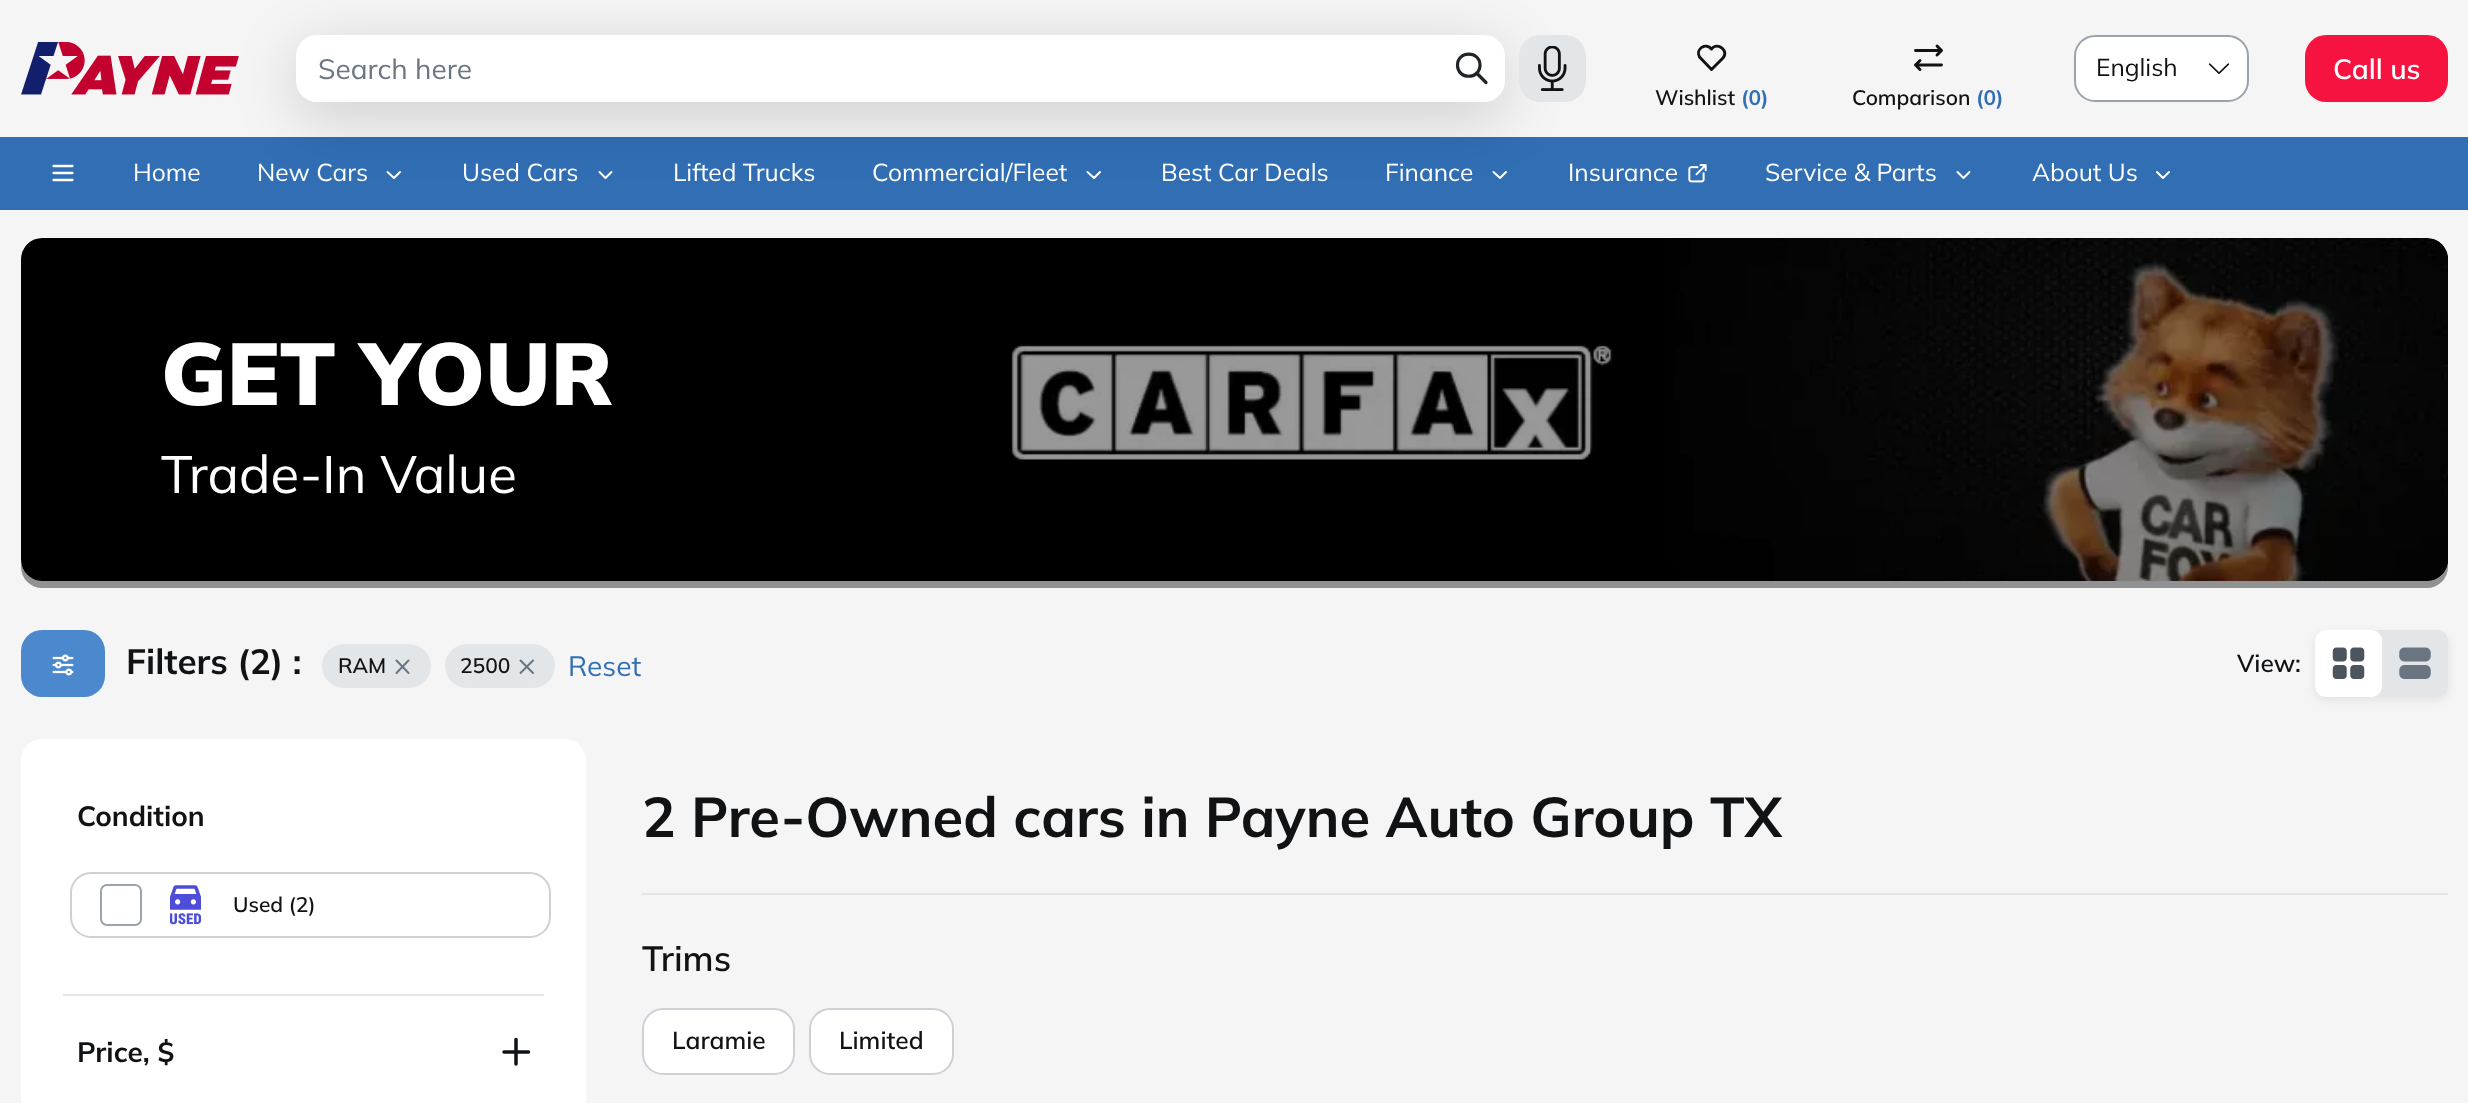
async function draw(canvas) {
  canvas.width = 2468
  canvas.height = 1103
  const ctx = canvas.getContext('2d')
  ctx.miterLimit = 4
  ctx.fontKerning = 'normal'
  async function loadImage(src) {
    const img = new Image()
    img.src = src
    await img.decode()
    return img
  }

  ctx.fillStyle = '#f5f5f5'
  ctx.fillRect(0, 0, 2468, 1103)
  ctx.drawImage(await loadImage('image0.png'), 21, 42, 218, 53)
  ctx.fillStyle = '#316eb4'
  ctx.fillRect(0, 137, 2468, 73)
  ctx.fillStyle = '#00000029'
  ctx.filter = 'blur(30.5px)'
  ctx.beginPath()
  ctx.roundRect(296, 49, 1209, 67, 21)
  ctx.fill()
  ctx.filter = 'none'
  ctx.fillStyle = '#fff'
  ctx.beginPath()
  ctx.roundRect(296, 35, 1209, 67, 21)
  ctx.fill()
  ctx.font = '28px Mulish'
  ctx.fillStyle = '#6a7681'
  ctx.fillText('Search here', 318, 79)
  ctx.beginPath()
  ctx.moveTo(1457.5, 65)
  ctx.bezierCurveTo(1457.5, 80, 1480, 80, 1480, 65)
  ctx.bezierCurveTo(1480, 50.5, 1457.5, 50.5, 1457.5, 65)
  ctx.moveTo(1486, 82.5)
  ctx.lineTo(1476.5, 73)
  ctx.strokeStyle = '#202427'
  ctx.lineWidth = 3.2
  ctx.lineCap = 'round'
  ctx.lineJoin = 'round'
  ctx.stroke()
  ctx.fillStyle = '#e3e6e8'
  ctx.beginPath()
  ctx.roundRect(1519, 35, 67, 67, 21)
  ctx.fill()
  ctx.drawImage(await loadImage('image1.png'), 1538, 46, 29, 45)
  ctx.fillStyle = '#fff'
  ctx.beginPath()
  ctx.roundRect(2075, 36, 173, 65, 20)
  ctx.fill()
  ctx.strokeStyle = '#9aa3ac'
  ctx.lineWidth = 2
  ctx.lineJoin = 'miter'
  ctx.stroke()
  ctx.font = '24.5px Mulish'
  ctx.fillStyle = '#101214'
  ctx.fillText('English', 2096, 76)
  ctx.drawImage(await loadImage('image2.png'), 2208, 63, 22, 11)
  ctx.fillStyle = '#f61340'
  ctx.beginPath()
  ctx.roundRect(2305, 35, 143, 67, 21)
  ctx.fill()
  ctx.font = '600 28px Mulish'
  ctx.fillStyle = '#fff'
  ctx.fillText('Call us', 2333, 79)
  ctx.beginPath()
  ctx.moveTo(1722.5, 58.5)
  ctx.lineTo(1711.5, 69.5)
  ctx.lineTo(1699.5, 57)
  ctx.bezierCurveTo(1695, 49, 1706, 42, 1711.5, 49)
  ctx.bezierCurveTo(1717.5, 41, 1730, 51.5, 1722.5, 58.5)
  ctx.strokeStyle = '#101214'
  ctx.lineWidth = 2.9
  ctx.lineJoin = 'round'
  ctx.stroke()
  ctx.font = '600 21px Mulish'
  ctx.fillStyle = '#101214'
  ctx.fillText('Wishlist', 1655, 105)
  ctx.font = 'bold 21px Mulish'
  ctx.fillStyle = '#316eb4'
  ctx.fillText('(0)', 1741, 105)
  ctx.beginPath()
  ctx.moveTo(1941.5, 50.5)
  ctx.lineTo(1915.5, 50.5)
  ctx.moveTo(1937, 55)
  ctx.lineTo(1941.5, 50.5)
  ctx.lineTo(1937, 46)
  ctx.moveTo(1920, 69.5)
  ctx.lineTo(1915.5, 65)
  ctx.lineTo(1920, 60.5)
  ctx.moveTo(1915.5, 65)
  ctx.lineTo(1941.5, 65)
  ctx.stroke()
  ctx.font = '600 21px Mulish'
  ctx.fillStyle = '#101214'
  ctx.fillText('Comparison', 1852, 105)
  ctx.font = 'bold 21px Mulish'
  ctx.fillStyle = '#316eb4'
  ctx.fillText('(0)', 1976, 105)
  ctx.beginPath()
  ctx.moveTo(53.5, 166)
  ctx.lineTo(72.5, 166)
  ctx.moveTo(53.5, 173)
  ctx.lineTo(72.5, 173)
  ctx.moveTo(53.5, 180)
  ctx.lineTo(72.5, 180)
  ctx.strokeStyle = '#fff'
  ctx.lineWidth = 2.3
  ctx.stroke()
  ctx.font = '24.5px Mulish'
  ctx.fillStyle = '#fff'
  ctx.fillText('Home', 133, 181)
  ctx.fillText('New Cars', 257, 181)
  ctx.beginPath()
  ctx.moveTo(387.5, 172)
  ctx.lineTo(394, 178)
  ctx.lineTo(400, 172)
  ctx.lineWidth = 2
  ctx.stroke()
  ctx.fillText('Used Cars', 462, 181)
  ctx.beginPath()
  ctx.moveTo(599.5, 172)
  ctx.lineTo(605.5, 178)
  ctx.lineTo(611.5, 172)
  ctx.stroke()
  ctx.fillText('Lifted Trucks', 673, 181)
  ctx.fillText('Commercial/Fleet', 872, 181)
  ctx.beginPath()
  ctx.moveTo(1087.5, 172)
  ctx.lineTo(1094, 178)
  ctx.lineTo(1100, 172)
  ctx.stroke()
  ctx.fillText('Best Car Deals', 1161, 181)
  ctx.fillText('Finance', 1385, 181)
  ctx.beginPath()
  ctx.moveTo(1493.5, 172)
  ctx.lineTo(1500, 178)
  ctx.lineTo(1506, 172)
  ctx.stroke()
  ctx.fillText('Insurance', 1568, 181)
  ctx.drawImage(await loadImage('image3.png'), 1688, 164, 19, 19)
  ctx.fillText('Service & Parts', 1765, 181)
  ctx.beginPath()
  ctx.moveTo(1957.5, 172)
  ctx.lineTo(1963.5, 178)
  ctx.lineTo(1969.5, 172)
  ctx.stroke()
  ctx.fillText('About Us', 2032, 181)
  ctx.beginPath()
  ctx.moveTo(2157, 172)
  ctx.lineTo(2163, 178)
  ctx.lineTo(2169, 172)
  ctx.stroke()
  ctx.fillStyle = '#f1f2f4'
  ctx.beginPath()
  ctx.roundRect(21, 238, 2427, 350, 21)
  ctx.fill()
  ctx.drawImage(await loadImage('image4.png'), 21, 238, 2427, 343)
  ctx.fillStyle = '#00000066'
  ctx.beginPath()
  ctx.roundRect(21, 238, 2427, 350, 21)
  ctx.fill()
  ctx.font = '900 87.5px Mulish'
  ctx.fillStyle = '#fff'
  ctx.fillText('GET YOUR', 161, 405)
  ctx.font = '52.5px Mulish'
  ctx.fillText('Trade-In Value', 161, 493)
  ctx.fillStyle = '#4b88ce'
  ctx.beginPath()
  ctx.roundRect(21, 630, 84, 67, 21)
  ctx.fill()
  ctx.drawImage(await loadImage('image5.png'), 52, 654, 22, 22)
  ctx.font = 'bold 35px Mulish'
  ctx.fillStyle = '#101214'
  ctx.fillText('Filters (2) :', 126, 674)
  ctx.fillStyle = '#e3e6e8'
  ctx.beginPath()
  ctx.roundRect(322, 644, 109, 44, 22)
  ctx.fill()
  ctx.font = '600 21px Mulish'
  ctx.fillStyle = '#101214'
  ctx.fillText('RAM', 338, 673)
  ctx.beginPath()
  ctx.moveTo(408.5, 660.5)
  ctx.lineTo(396.5, 673)
  ctx.moveTo(396.5, 660.5)
  ctx.lineTo(408.5, 673)
  ctx.strokeStyle = '#6a7681'
  ctx.stroke()
  ctx.fillStyle = '#e3e6e8'
  ctx.beginPath()
  ctx.roundRect(445, 644, 110, 44, 22)
  ctx.fill()
  ctx.fillStyle = '#101214'
  ctx.fillText('2500', 460, 673)
  ctx.beginPath()
  ctx.moveTo(533, 660.5)
  ctx.lineTo(520.5, 673)
  ctx.moveTo(520.5, 660.5)
  ctx.lineTo(533, 673)
  ctx.stroke()
  ctx.font = '28px Mulish'
  ctx.fillStyle = '#316eb4'
  ctx.fillText('Reset', 568, 676)
  ctx.font = '600 24.5px Mulish'
  ctx.fillStyle = '#101214'
  ctx.fillText('View:', 2237, 672)
  ctx.fillStyle = '#00000014'
  ctx.filter = 'blur(5px)'
  ctx.beginPath()
  ctx.roundRect(2315, 634, 133, 66, 11)
  ctx.fill()
  ctx.filter = 'none'
  ctx.fillStyle = '#e3e6e8'
  ctx.beginPath()
  ctx.roundRect(2315, 630, 133, 67, 11)
  ctx.fill()
  ctx.fillStyle = '#fff'
  ctx.beginPath()
  ctx.roundRect(2315, 630, 67, 67, 11)
  ctx.fill()
  ctx.drawImage(await loadImage('image6.png'), 2332, 647, 33, 32)
  ctx.drawImage(await loadImage('image7.png'), 2399, 647, 32, 32)
  ctx.beginPath()
  ctx.roundRect(21, 739, 565, 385, 21)
  ctx.fill()
  ctx.fillStyle = '#e3e6e8'
  ctx.fillRect(63, 994, 481, 2)
  ctx.font = 'bold 28px Mulish'
  ctx.fillStyle = '#101214'
  ctx.fillText('Condition', 77, 826)
  ctx.beginPath()
  ctx.roundRect(71, 873, 479, 64, 20)
  ctx.strokeStyle = '#cdd1d6'
  ctx.lineJoin = 'miter'
  ctx.stroke()
  ctx.beginPath()
  ctx.roundRect(101, 885, 40, 40, 6)
  ctx.strokeStyle = '#9aa4ac'
  ctx.stroke()
  ctx.drawImage(await loadImage('image8.png'), 170, 885, 31, 40)
  ctx.font = '600 21px Mulish'
  ctx.fillText('Used (2)', 233, 912)
  ctx.font = 'bold 28px Mulish'
  ctx.fillText('Price, $', 77, 1062)
  ctx.beginPath()
  ctx.moveTo(516, 1039.5)
  ctx.lineTo(516, 1064)
  ctx.moveTo(504, 1052)
  ctx.lineTo(528.5, 1052)
  ctx.strokeStyle = '#101214'
  ctx.lineWidth = 3.5
  ctx.lineJoin = 'round'
  ctx.stroke()
  ctx.fillStyle = '#e3e6e8'
  ctx.fillRect(642, 893, 1806, 2)
  ctx.font = 'bold 56px Mulish'
  ctx.fillStyle = '#101214'
  ctx.fillText('2 Pre-Owned cars in Payne Auto Group TX', 642, 837)
  ctx.font = '600 35px Mulish'
  ctx.fillText('Trims', 642, 971)
  ctx.fillStyle = '#fff'
  ctx.beginPath()
  ctx.roundRect(643, 1009, 151, 65, 20)
  ctx.fill()
  ctx.strokeStyle = '#cdd1d6'
  ctx.lineWidth = 2
  ctx.lineJoin = 'miter'
  ctx.stroke()
  ctx.font = '600 24.5px Mulish'
  ctx.fillStyle = '#101214'
  ctx.fillText('Laramie', 672, 1049)
  ctx.fillStyle = '#fff'
  ctx.beginPath()
  ctx.roundRect(810, 1009, 143, 65, 20)
  ctx.fill()
  ctx.stroke()
  ctx.fillStyle = '#101214'
  ctx.fillText('Limited', 839, 1049)
}

draw(document.querySelector('canvas'))
